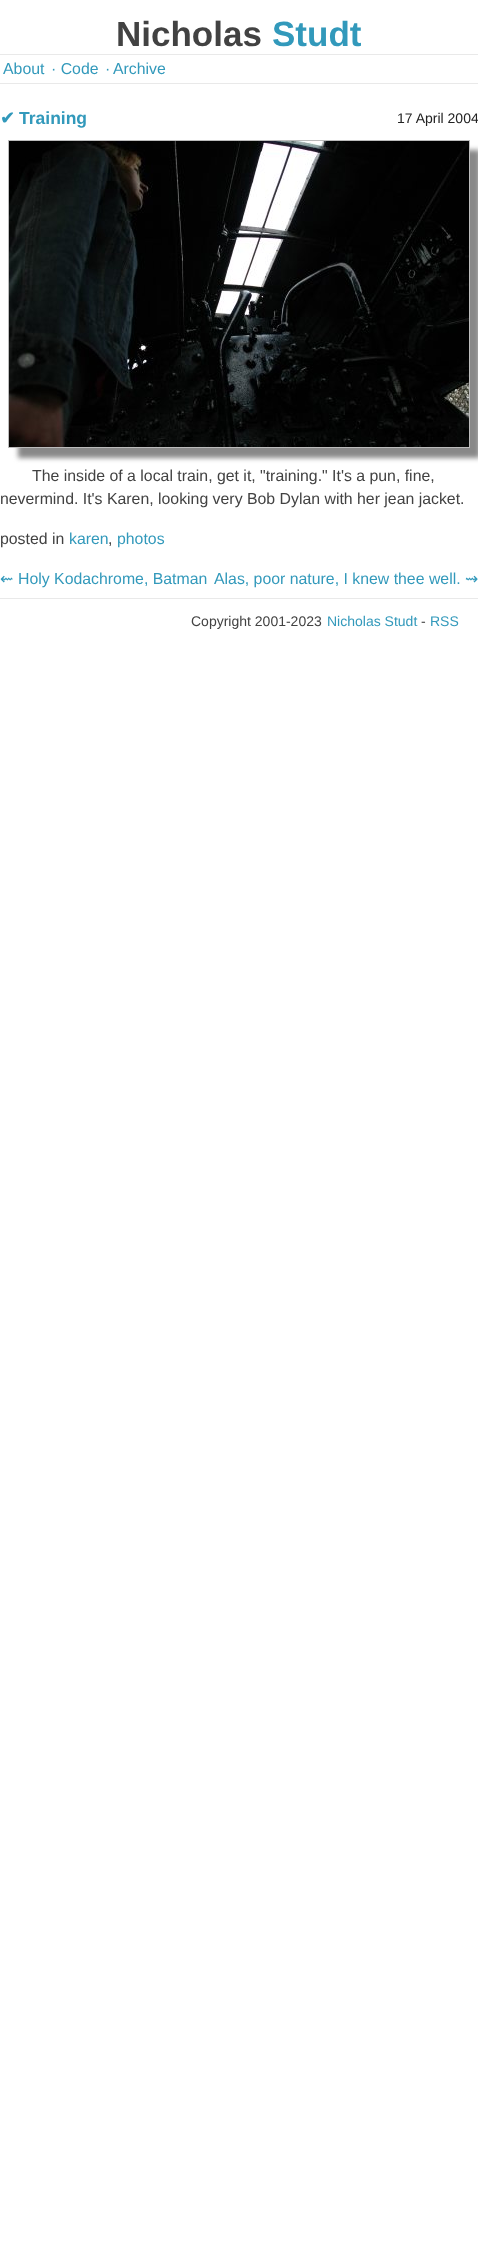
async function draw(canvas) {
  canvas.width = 478
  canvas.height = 2259
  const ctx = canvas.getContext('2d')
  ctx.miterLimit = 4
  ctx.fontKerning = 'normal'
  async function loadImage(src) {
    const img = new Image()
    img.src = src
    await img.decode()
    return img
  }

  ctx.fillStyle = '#fff'
  ctx.fillRect(0, 0, 478, 2259)
  ctx.font = 'bold 35px Liberation Sans'
  ctx.fillStyle = '#424242'
  ctx.fillText('Nicholas', 116, 46)
  ctx.fillStyle = '#3299bb'
  ctx.fillText('Studt', 272, 46)
  ctx.fillStyle = '#e9e9e9'
  ctx.fillRect(0, 54, 478, 1)
  ctx.fillRect(0, 83, 478, 1)
  ctx.font = '15.85px Liberation Sans'
  ctx.fillStyle = '#3299bb'
  ctx.fillText('About', 3, 74)
  ctx.fillText('· Code', 51, 74)
  ctx.fillText('·', 105, 74)
  ctx.fillText('Archive', 113, 74)
  ctx.font = 'bold 17.5px DejaVu Sans'
  ctx.fillText('✔', 0, 124)
  ctx.font = 'bold 17.5px Liberation Sans'
  ctx.fillText('Training', 19, 124)
  ctx.font = '14px Liberation Sans'
  ctx.fillStyle = '#222'
  ctx.fillText('17 April 2004', 397, 123)
  ctx.fillStyle = '#888'
  ctx.filter = 'blur(2.5px)'
  ctx.beginPath()
  ctx.rect(18, 150, 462, 308)
  ctx.fill()
  ctx.filter = 'none'
  ctx.strokeStyle = '#bcbcbc'
  ctx.strokeRect(8.5, 140.5, 461, 307)
  ctx.drawImage(await loadImage('image0.png'), 9, 141, 460, 306)
  ctx.font = '15.85px Liberation Sans'
  ctx.fillStyle = '#424242'
  ctx.fillText('The inside of a local train, get it, "training." It\'s a pun, fine,', 32, 481)
  ctx.fillText('nevermind. It\'s Karen, looking very Bob Dylan with her jean jacket.', 0, 504)
  ctx.fillText('posted in', 0, 544)
  ctx.fillStyle = '#3299bb'
  ctx.fillText('karen', 69, 544)
  ctx.fillStyle = '#424242'
  ctx.fillText(',', 108, 544)
  ctx.fillStyle = '#3299bb'
  ctx.fillText('photos', 117, 544)
  ctx.font = '15.85px DejaVu Sans'
  ctx.fillText('⇜', 0, 584)
  ctx.font = '15.85px Liberation Sans'
  ctx.fillText('Holy Kodachrome, Batman', 18, 584)
  ctx.fillText('Alas, poor nature, I knew thee well.', 214, 584)
  ctx.font = '15.85px DejaVu Sans'
  ctx.fillText('⇝', 465, 584)
  ctx.fillStyle = '#e9e9e9'
  ctx.fillRect(0, 598, 478, 1)
  ctx.font = '14px Liberation Sans'
  ctx.fillStyle = '#424242'
  ctx.fillText('Copyright 2001-2023', 191, 626)
  ctx.fillStyle = '#3299bb'
  ctx.fillText('Nicholas Studt', 327, 626)
  ctx.fillStyle = '#424242'
  ctx.fillText('-', 421, 626)
  ctx.fillStyle = '#3299bb'
  ctx.fillText('RSS', 430, 626)
}

draw(document.querySelector('canvas'))
